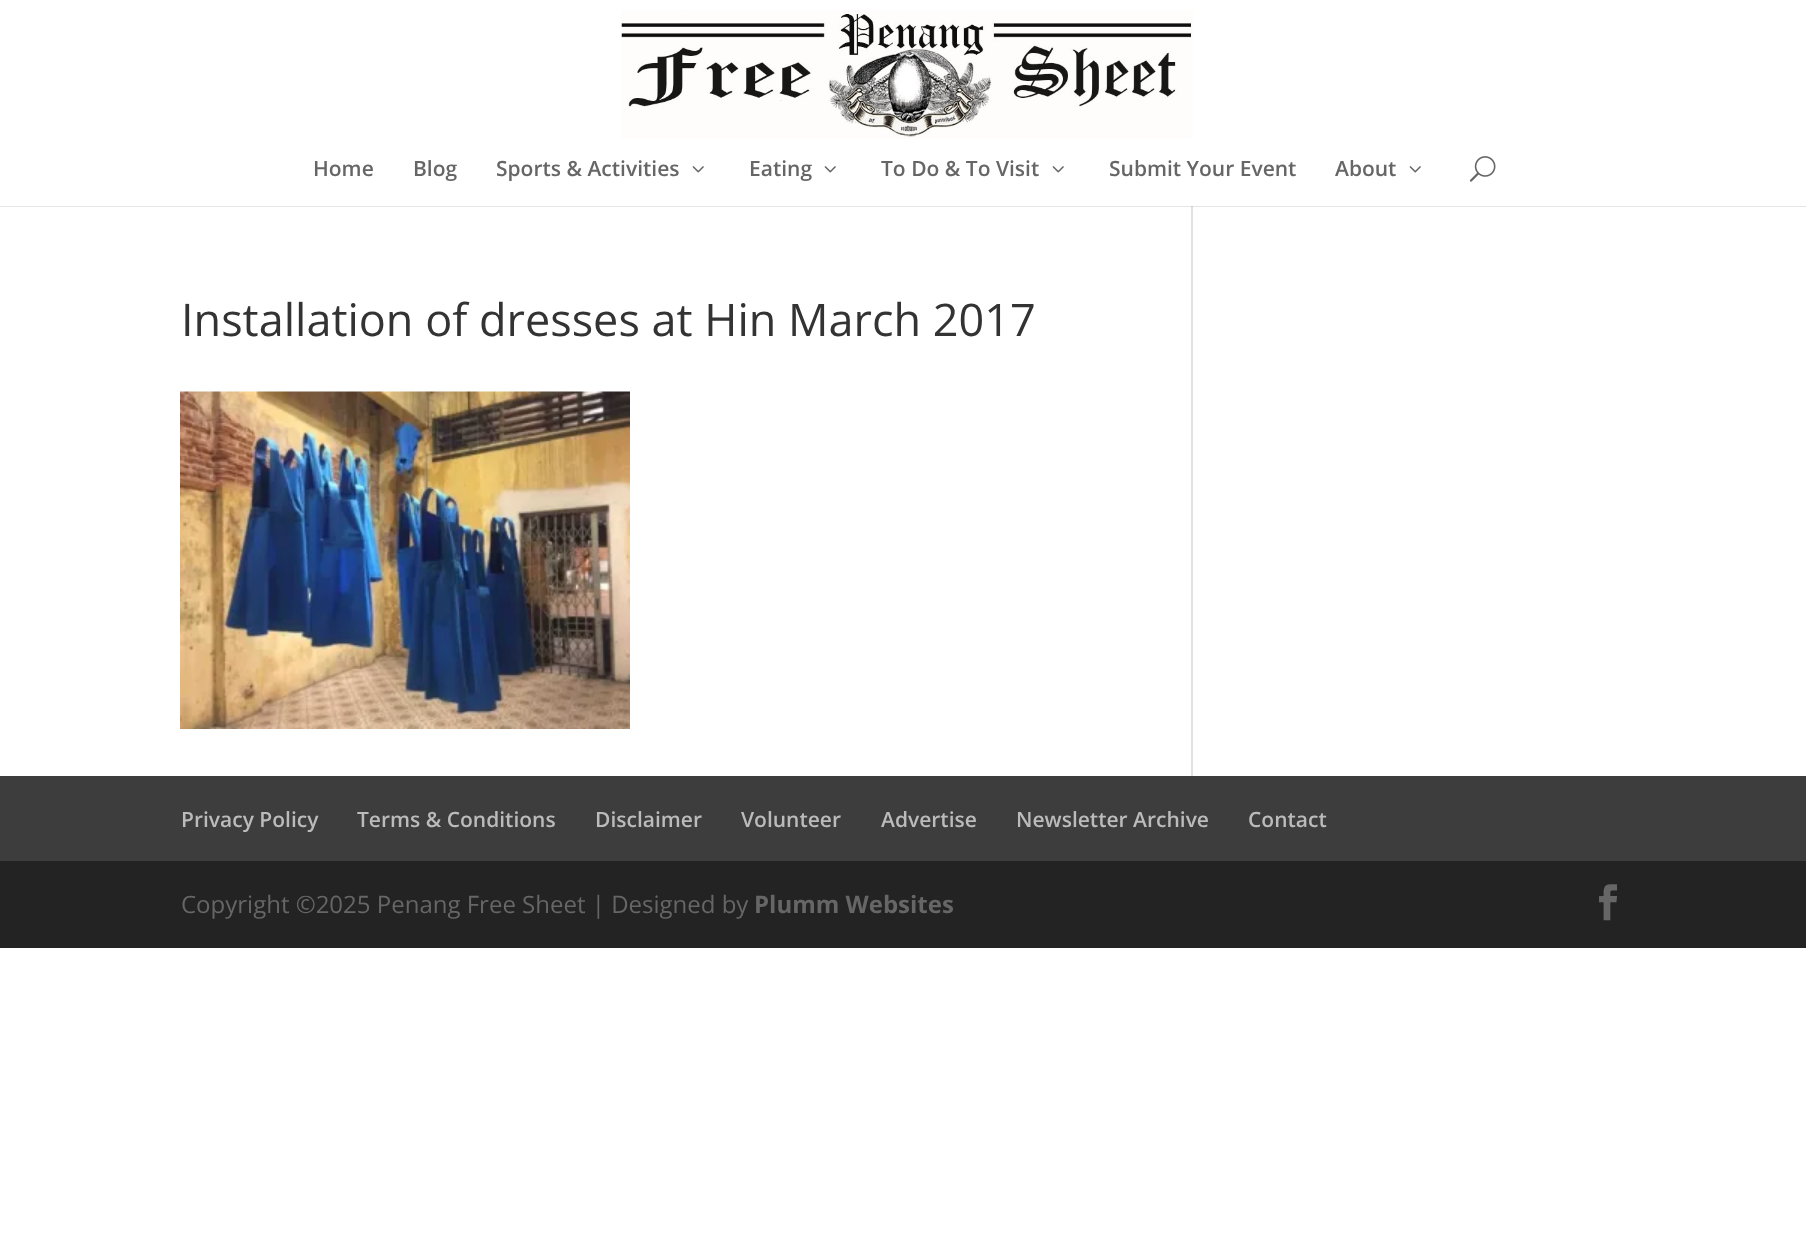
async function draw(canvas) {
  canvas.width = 1806
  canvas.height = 1246
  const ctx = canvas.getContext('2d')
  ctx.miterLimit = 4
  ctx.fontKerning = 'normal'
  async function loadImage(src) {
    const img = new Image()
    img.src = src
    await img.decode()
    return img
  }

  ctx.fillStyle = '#fff'
  ctx.fillRect(0, 0, 1806, 1246)
  ctx.fillStyle = '#e6e6e6'
  ctx.fillRect(0, 206, 1806, 1)
  ctx.drawImage(await loadImage('image0.png'), 621, 10, 572, 129)
  ctx.font = '600 21px Open Sans'
  ctx.fillStyle = '#666'
  ctx.fillText('Home', 313, 176)
  ctx.fillText('Blog', 413, 176)
  ctx.fillText('Sports & Activities', 496, 176)
  ctx.drawImage(await loadImage('image1.png'), 692, 166, 12, 7)
  ctx.fillText('Eating', 749, 176)
  ctx.drawImage(await loadImage('image1.png'), 824, 166, 12, 7)
  ctx.fillText('To Do & To Visit', 881, 176)
  ctx.drawImage(await loadImage('image1.png'), 1052, 166, 12, 7)
  ctx.fillText('Submit Your Event', 1109, 176)
  ctx.fillText('About', 1335, 176)
  ctx.drawImage(await loadImage('image1.png'), 1409, 166, 12, 7)
  ctx.drawImage(await loadImage('image2.png'), 1469, 156, 27, 26)
  ctx.font = '45px Open Sans'
  ctx.fillStyle = '#333'
  ctx.fillText('Installation of dresses at Hin March 2017', 181, 336)
  ctx.drawImage(await loadImage('image3.png'), 180, 391, 450, 338)
  ctx.fillStyle = '#e2e2e2'
  ctx.fillRect(1191, 206, 2, 570)
  ctx.fillStyle = '#cbcbcb'
  ctx.fillRect(1191, 206, 2, 1)
  ctx.fillStyle = '#3d3d3d'
  ctx.fillRect(0, 776, 1806, 85)
  ctx.font = '600 21px Open Sans'
  ctx.fillStyle = '#bbb'
  ctx.fillText('Privacy Policy', 181, 827)
  ctx.fillText('Terms & Conditions', 357, 827)
  ctx.fillText('Disclaimer', 595, 827)
  ctx.fillText('Volunteer', 741, 827)
  ctx.fillText('Advertise', 881, 827)
  ctx.fillText('Newsletter Archive', 1016, 827)
  ctx.fillText('Contact', 1248, 827)
  ctx.fillStyle = '#232323'
  ctx.fillRect(0, 861, 1806, 87)
  ctx.font = '24px Open Sans'
  ctx.fillStyle = '#666'
  ctx.fillText('Copyright ©2025 Penang Free Sheet | Designed by', 181, 913)
  ctx.font = 'bold 24px Open Sans'
  ctx.fillText('Plumm Websites', 754, 913)
  ctx.drawImage(await loadImage('image4.png'), 1599, 884, 18, 37)
}

draw(document.querySelector('canvas'))
